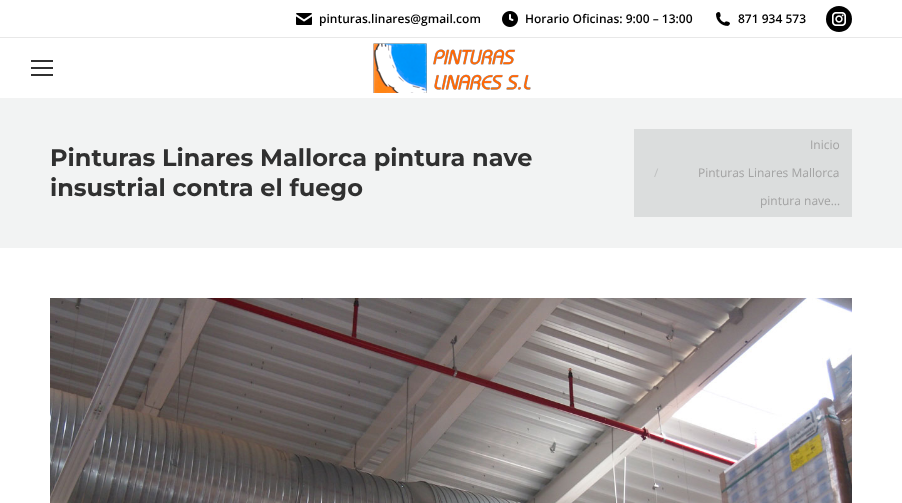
async function draw(canvas) {
  canvas.width = 902
  canvas.height = 503
  const ctx = canvas.getContext('2d')
  ctx.miterLimit = 4
  ctx.fontKerning = 'normal'
  async function loadImage(src) {
    const img = new Image()
    img.src = src
    await img.decode()
    return img
  }

  ctx.fillStyle = '#fff'
  ctx.fillRect(0, 0, 902, 503)
  ctx.drawImage(await loadImage('image0.png'), 296, 13, 16, 12)
  ctx.font = '600 12px Open Sans'
  ctx.fillStyle = '#000'
  ctx.fillText('pinturas.linares@gmail.com', 319, 23)
  ctx.drawImage(await loadImage('image1.png'), 502, 11, 16, 16)
  ctx.fillText('Horario Oficinas: 9:00 – 13:00', 525, 23)
  ctx.drawImage(await loadImage('image2.png'), 716, 12, 14, 14)
  ctx.fillText('871 934 573', 738, 23)
  ctx.beginPath()
  ctx.arc(839, 19, 13, 0, 2 * Math.PI)
  ctx.fill()
  ctx.drawImage(await loadImage('image3.png'), 832, 12, 14, 14)
  ctx.fillStyle = '#e8e8e8'
  ctx.fillRect(0, 37, 902, 1)
  ctx.fillStyle = '#303030'
  ctx.fillRect(31, 60, 22, 2)
  ctx.fillRect(31, 67, 22, 2)
  ctx.fillRect(31, 74, 22, 2)
  ctx.drawImage(await loadImage('image4.png'), 373, 43, 158, 50)
  ctx.fillStyle = '#f2f3f3'
  ctx.fillRect(0, 98, 902, 150)
  ctx.font = 'bold 24px Montserrat'
  ctx.fillStyle = '#303030'
  ctx.fillText('Pinturas Linares Mallorca pintura nave', 50, 166)
  ctx.fillText('insustrial contra el fuego', 50, 196)
  ctx.fillStyle = '#dbdddd'
  ctx.fillRect(634, 129, 218, 88)
  ctx.font = '12px Open Sans'
  ctx.fillStyle = '#a3a3a3'
  ctx.fillText('Inicio', 810, 149)
  ctx.fillStyle = '#bfc0c0'
  ctx.fillText('/', 654, 177)
  ctx.fillStyle = '#a3a3a3'
  ctx.fillText('Pinturas Linares Mallorca', 698, 177)
  ctx.fillText('pintura nave…', 760, 205)
  ctx.drawImage(await loadImage('image5.png'), 50, 298, 802, 205)
}

draw(document.querySelector('canvas'))
